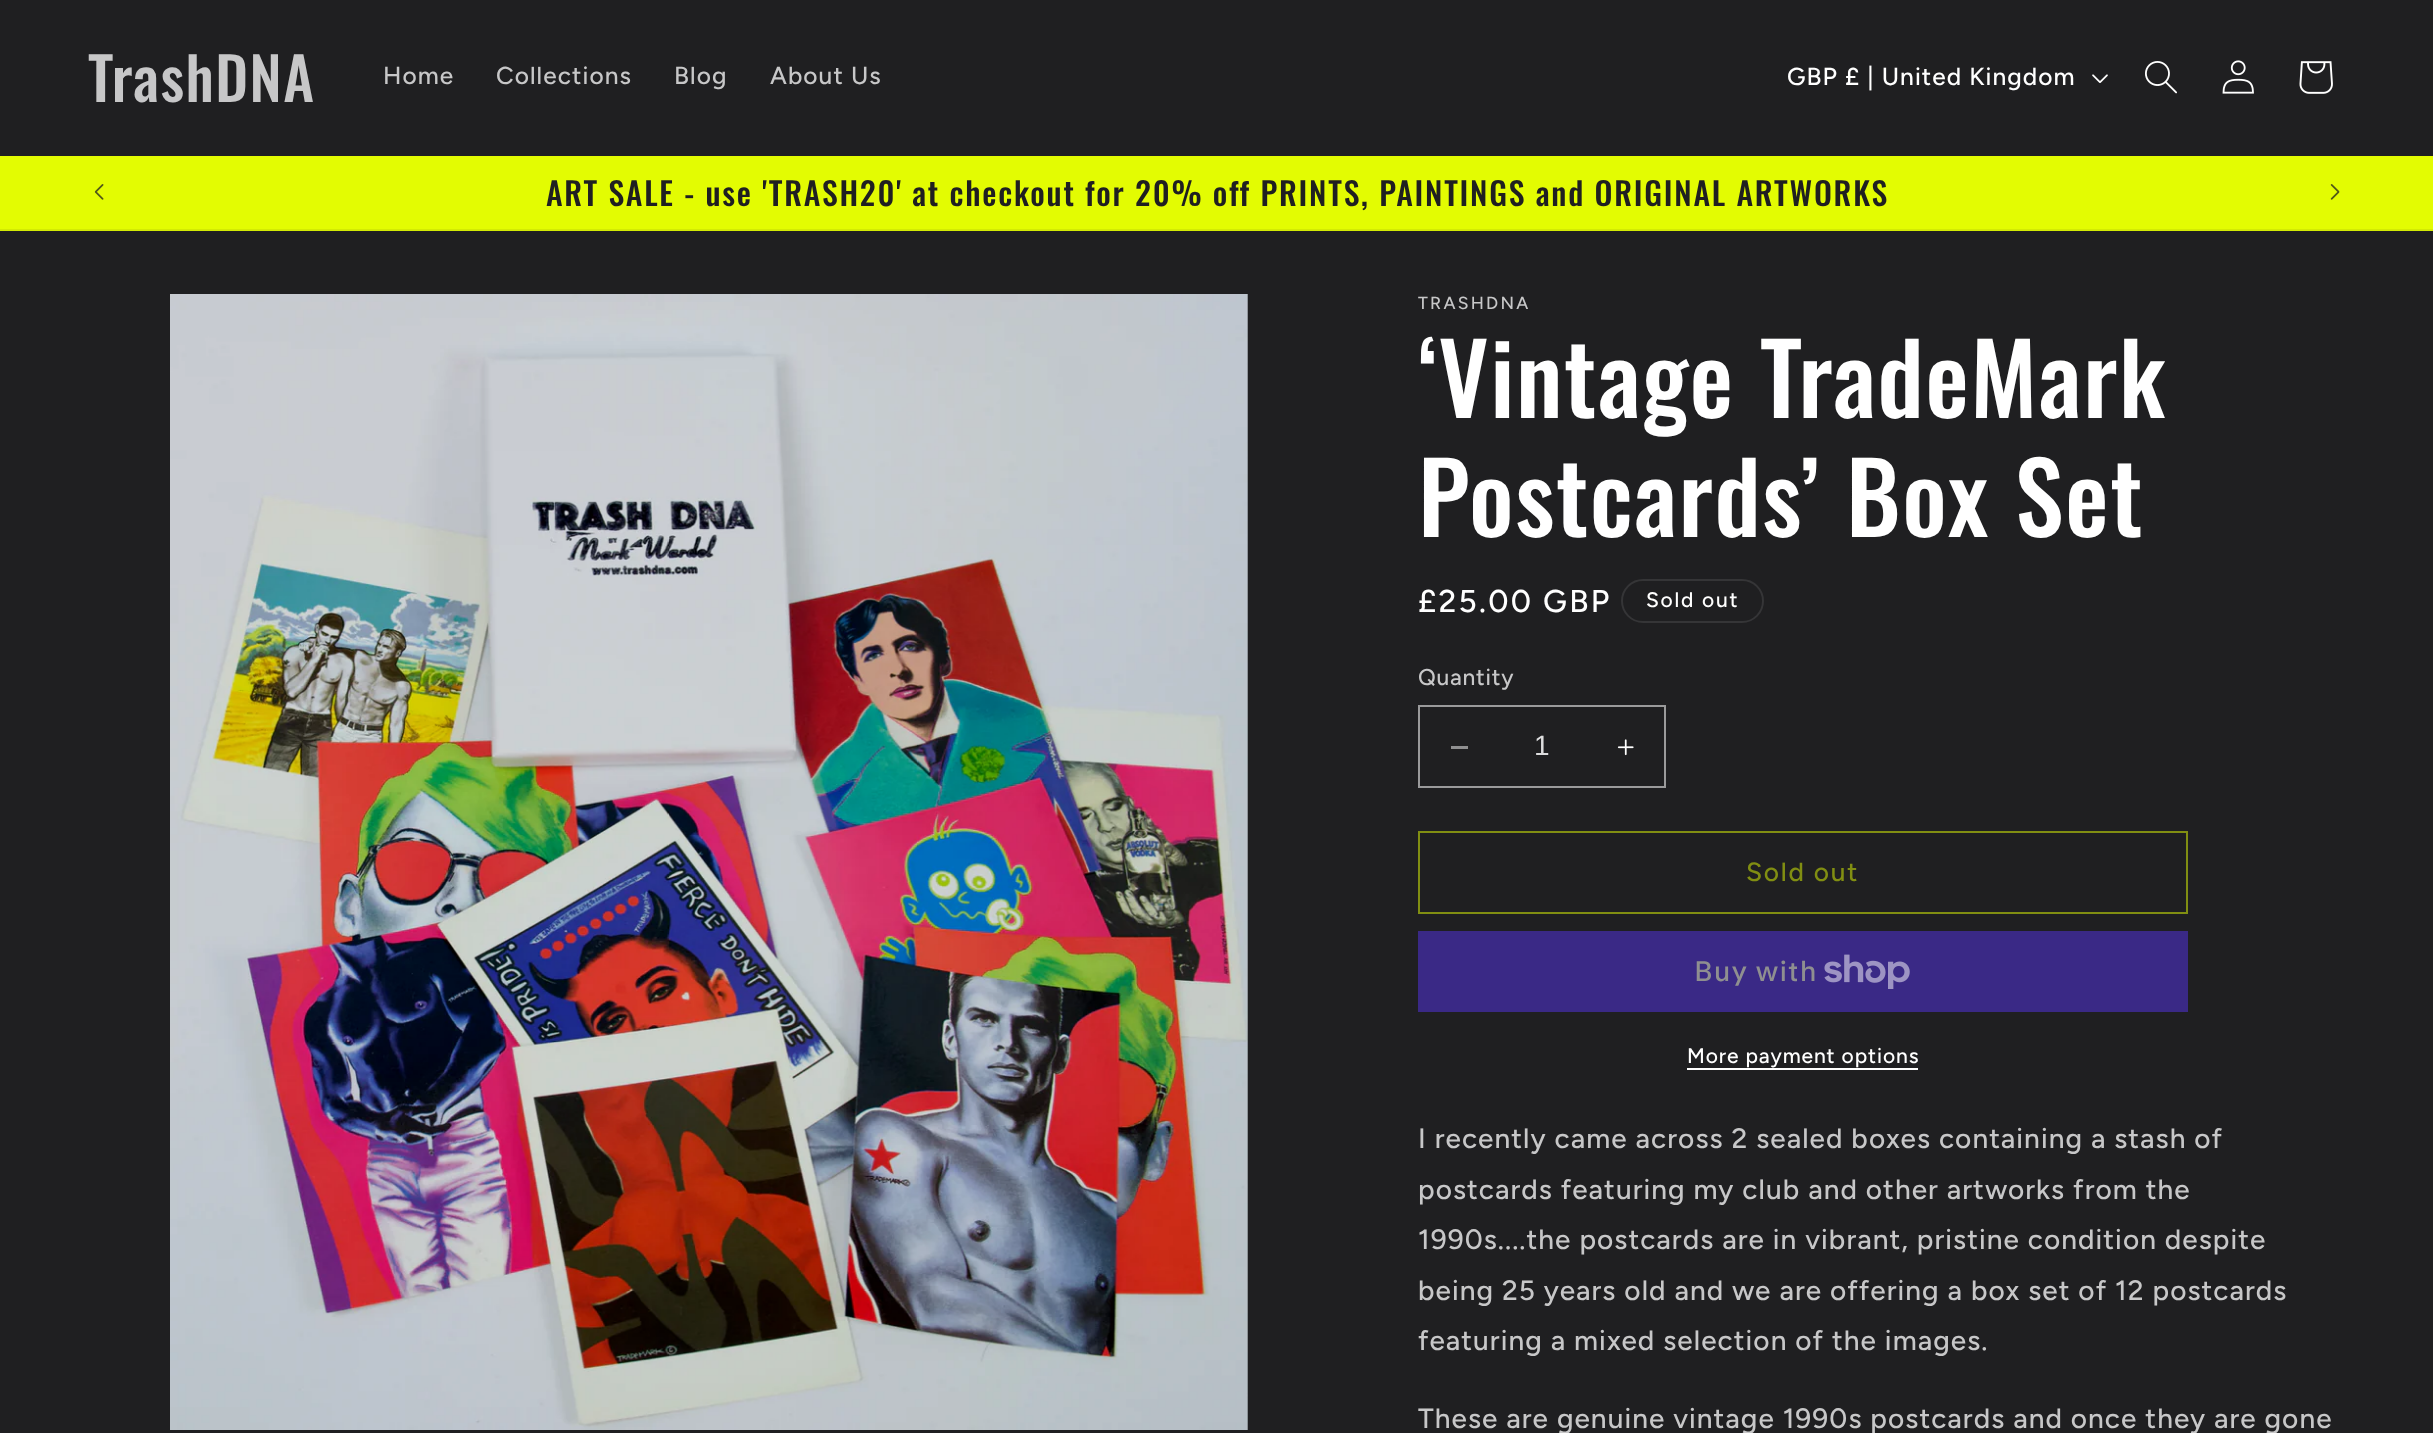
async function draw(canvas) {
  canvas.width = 2433
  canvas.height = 1433
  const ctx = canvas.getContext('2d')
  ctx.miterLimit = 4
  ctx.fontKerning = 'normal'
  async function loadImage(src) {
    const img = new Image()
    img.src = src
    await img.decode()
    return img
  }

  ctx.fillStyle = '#1f1f21'
  ctx.fillRect(0, 0, 2433, 1433)
  ctx.letterSpacing = '1.5px'
  ctx.font = '500 59px Oswald'
  ctx.fillStyle = '#c7c7c8'
  ctx.fillText('TrashDNA', 88, 102)
  ctx.letterSpacing = '1.05px'
  ctx.font = '500 24.5px Figtree'
  ctx.fillText('Home', 383, 84)
  ctx.fillText('Collections', 496, 84)
  ctx.fillText('Blog', 674, 84)
  ctx.fillText('About Us', 770, 84)
  ctx.fillStyle = '#fff'
  ctx.fillText('GBP £ | United Kingdom', 1787, 85)
  ctx.drawImage(await loadImage('image0.png'), 2092, 74, 16, 9)
  ctx.drawImage(await loadImage('image1.png'), 2145, 61, 32, 33)
  ctx.drawImage(await loadImage('image2.png'), 2222, 60, 32, 34)
  ctx.drawImage(await loadImage('image3.png'), 2299, 61, 34, 33)
  ctx.fillStyle = '#e3fc02'
  ctx.fillRect(0, 156, 2433, 73)
  ctx.fillStyle = '#d3ea04'
  ctx.fillRect(0, 229, 2433, 2)
  ctx.drawImage(await loadImage('image4.png'), 94, 184, 10, 16)
  ctx.letterSpacing = '1.75px'
  ctx.font = '500 31.85px Oswald'
  ctx.fillStyle = '#1f1f21'
  ctx.fillText('ART SALE - use \'TRASH20\' at checkout for 20% off PRINTS, PAINTINGS and ORIGINAL ARTWORKS', 546, 206)
  ctx.drawImage(await loadImage('image5.png'), 2330, 184, 10, 16)
  ctx.drawImage(await loadImage('image6.png'), 170, 294, 1078, 1136)
  ctx.letterSpacing = '2.25px'
  ctx.font = '500 17.5px Figtree'
  ctx.fillStyle = '#c7c7c8'
  ctx.fillText('TRASHDNA', 1418, 309)
  ctx.letterSpacing = '1.5px'
  ctx.font = '500 98px Oswald'
  ctx.fillStyle = '#fff'
  ctx.fillText('‘Vintage TradeMark', 1418, 418)
  ctx.fillText('Postcards’ Box Set', 1418, 537)
  ctx.letterSpacing = '2.25px'
  ctx.font = '500 31.5px Figtree'
  ctx.fillText('£25.00 GBP', 1418, 612)
  ctx.beginPath()
  ctx.roundRect(1622, 580, 141, 42, 21)
  ctx.strokeStyle = '#353537'
  ctx.lineWidth = 2
  ctx.stroke()
  ctx.letterSpacing = '1.75px'
  ctx.font = '500 21px Figtree'
  ctx.fillText('Sold out', 1646, 607)
  ctx.letterSpacing = '0.75px'
  ctx.font = '500 22.75px Figtree'
  ctx.fillStyle = '#c7c7c8'
  ctx.fillText('Quantity', 1418, 685)
  ctx.fillStyle = '#8f8f90'
  ctx.fillRect(1451, 746, 17, 3)
  ctx.drawImage(await loadImage('image7.png'), 1617, 739, 17, 17)
  ctx.strokeStyle = '#9a9a9b'
  ctx.strokeRect(1419, 706, 246, 81)
  ctx.letterSpacing = '0px'
  ctx.font = '28px Liberation Sans'
  ctx.fillStyle = '#ddddde'
  ctx.fillText('1', 1534, 755)
  ctx.strokeStyle = '#818e12'
  ctx.strokeRect(1419, 832, 768, 81)
  ctx.letterSpacing = '1.75px'
  ctx.font = '500 26.25px Figtree'
  ctx.fillStyle = '#818e12'
  ctx.fillText('Sold out', 1746, 881)
  ctx.fillStyle = '#3a2986'
  ctx.fillRect(1418, 931, 770, 81)
  ctx.letterSpacing = '1.05px'
  ctx.font = '500 28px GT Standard'
  ctx.fillStyle = '#8f8f90'
  ctx.fillText('Buy with', 1694, 981)
  ctx.drawImage(await loadImage('image8.png'), 1824, 954, 86, 35)
  ctx.letterSpacing = '0.9px'
  ctx.font = '500 21px Figtree'
  ctx.fillStyle = '#fff'
  ctx.fillText('More payment options', 1687, 1063)
  ctx.fillRect(1687, 1068, 231, 2)
  ctx.letterSpacing = '1.05px'
  ctx.font = '500 28px Figtree'
  ctx.fillStyle = '#c7c7c8'
  ctx.fillText('I recently came across 2 sealed boxes containing a stash of', 1418, 1148)
  ctx.fillText('postcards featuring my club and other artworks from the', 1418, 1199)
  ctx.fillText('1990s....the postcards are in vibrant, pristine condition despite', 1418, 1249)
  ctx.fillText('being 25 years old and we are offering a box set of 12 postcards', 1418, 1300)
  ctx.fillText('featuring a mixed selection of the images.', 1418, 1350)
  ctx.fillText('These are genuine vintage 1990s postcards and once they are gone', 1418, 1428)
}

draw(document.querySelector('canvas'))
